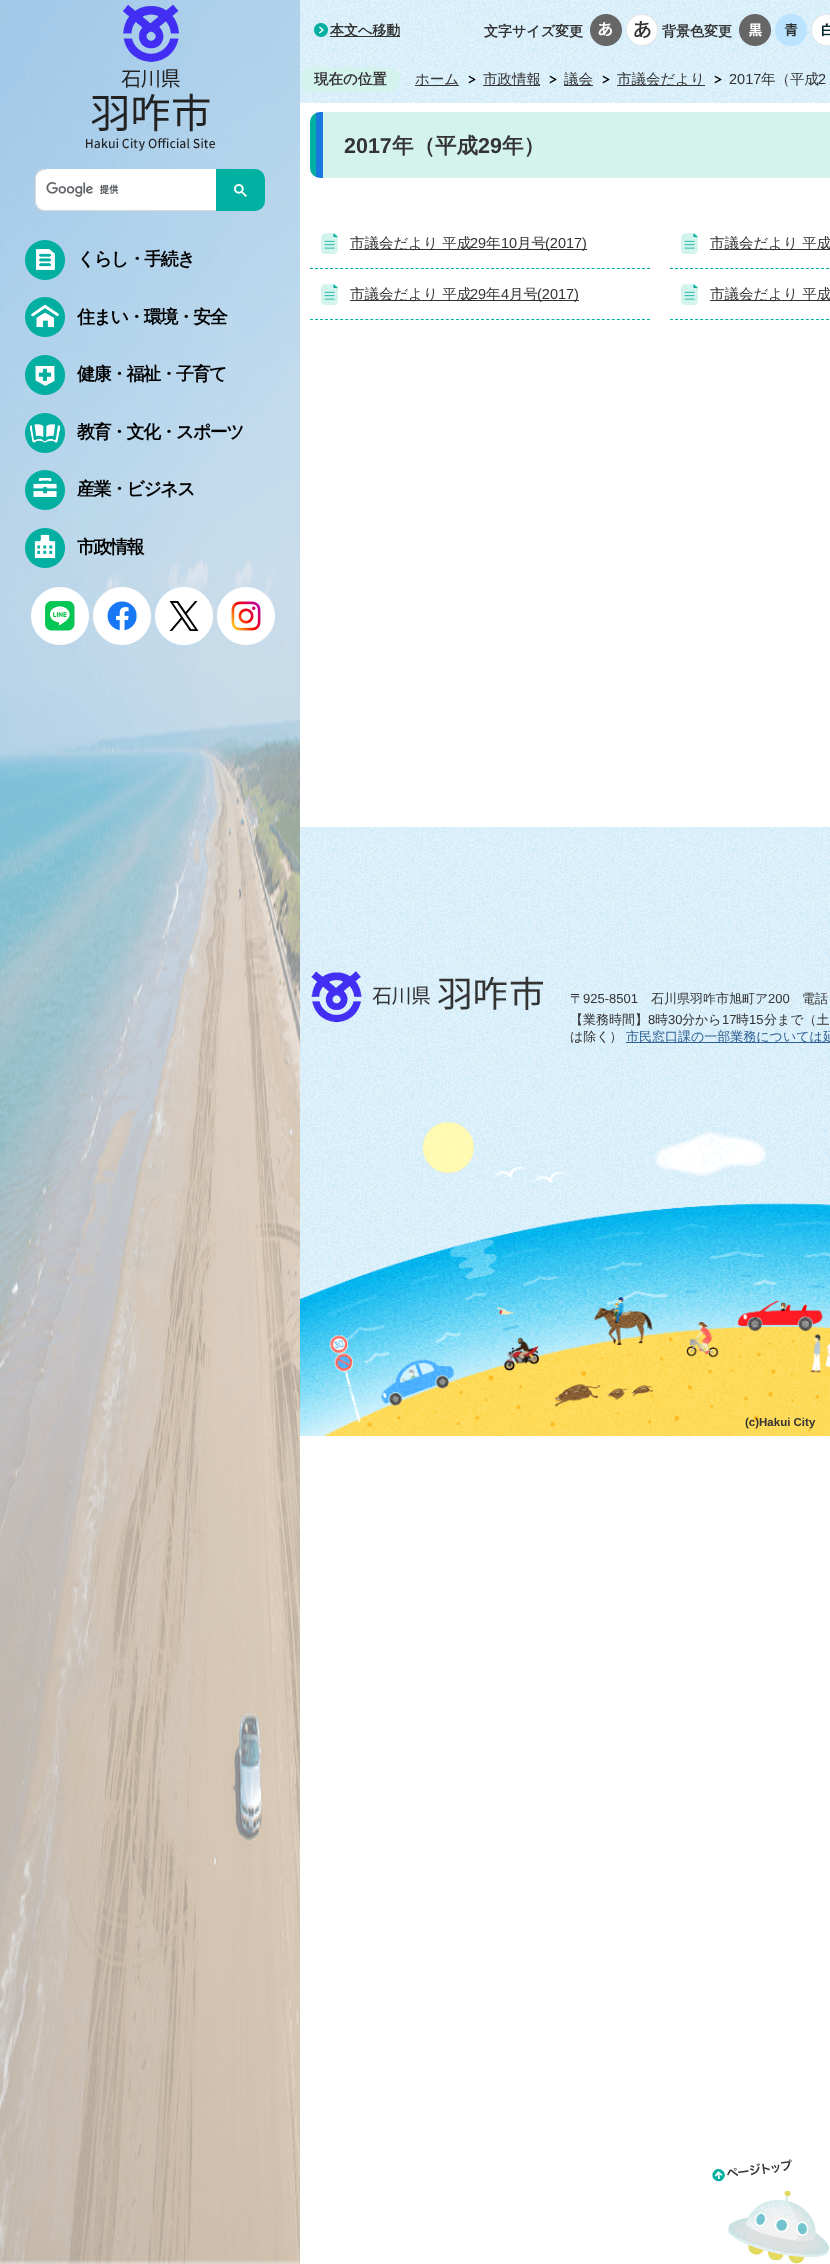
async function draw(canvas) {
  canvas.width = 830
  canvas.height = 2264
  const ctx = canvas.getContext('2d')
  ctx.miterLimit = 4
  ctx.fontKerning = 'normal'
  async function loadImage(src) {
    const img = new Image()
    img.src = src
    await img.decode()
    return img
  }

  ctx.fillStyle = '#fff'
  ctx.fillRect(0, 0, 830, 2264)
  ctx.drawImage(await loadImage('image1.png'), 300, 0, 530, 936)
  ctx.drawImage(await loadImage('image0.png'), 314, 23, 14, 14)
  ctx.fillStyle = '#333'
  ctx.fillRect(330, 36, 70, 1)
  ctx.font = 'bold 14px WenQuanYi Zen Hei'
  ctx.fillText('本文へ移動', 330, 35)
  ctx.fillText('文字サイズ変更', 484, 36)
  ctx.drawImage(await loadImage('image2.png'), 590, 14, 32, 32)
  ctx.drawImage(await loadImage('image3.png'), 626, 14, 32, 32)
  ctx.fillText('背景色変更', 662, 36)
  ctx.drawImage(await loadImage('image4.png'), 739, 14, 32, 32)
  ctx.drawImage(await loadImage('image5.png'), 775, 14, 32, 32)
  ctx.drawImage(await loadImage('image6.png'), 811, 14, 19, 32)
  ctx.fillStyle = '#d4f3ed'
  ctx.beginPath()
  ctx.roundRect(300, 67, 100, 25, 12.5)
  ctx.fill()
  ctx.font = 'bold 14.5px WenQuanYi Zen Hei'
  ctx.fillStyle = '#333'
  ctx.fillText('現在の位置', 314, 84)
  ctx.fillRect(415, 85, 44, 1)
  ctx.font = '500 14.5px WenQuanYi Zen Hei'
  ctx.fillText('ホーム', 415, 84)
  ctx.drawImage(await loadImage('image7.png'), 468, 75, 8, 9)
  ctx.fillRect(483, 85, 57, 1)
  ctx.fillText('市政情報', 483, 84)
  ctx.drawImage(await loadImage('image8.png'), 549, 75, 8, 9)
  ctx.fillRect(564, 85, 29, 1)
  ctx.fillText('議会', 564, 84)
  ctx.drawImage(await loadImage('image9.png'), 602, 75, 8, 9)
  ctx.fillRect(617, 85, 88, 1)
  ctx.fillText('市議会だより', 617, 84)
  ctx.drawImage(await loadImage('image10.png'), 714, 75, 8, 9)
  ctx.font = '14.5px Liberation Sans'
  ctx.fillText('2017', 729, 84)
  ctx.font = '500 14.5px WenQuanYi Zen Hei'
  ctx.fillText('年（平成', 761, 84)
  ctx.font = '14.5px Liberation Sans'
  ctx.fillText('2', 818, 84)
  ctx.fillStyle = '#fff'
  ctx.fillRect(300, 103, 530, 724)
  ctx.fillStyle = '#d4f3ed'
  ctx.beginPath()
  ctx.roundRect(310, 112, 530, 66, 10)
  ctx.fill()
  ctx.drawImage(await loadImage('image11.png'), 310, 112, 13, 66)
  ctx.font = 'bold 21.5px Liberation Sans'
  ctx.fillStyle = '#333'
  ctx.fillText('2017', 344, 153)
  ctx.font = 'bold 21.5px WenQuanYi Zen Hei'
  ctx.fillText('年（平成', 392, 153)
  ctx.font = 'bold 21.5px Liberation Sans'
  ctx.fillText('29', 478, 153)
  ctx.font = 'bold 21.5px WenQuanYi Zen Hei'
  ctx.fillText('年）', 502, 153)
  ctx.drawImage(await loadImage('image12.png'), 321, 233, 17, 21)
  ctx.beginPath()
  ctx.moveTo(310, 268.5)
  ctx.lineTo(650, 268.5)
  ctx.strokeStyle = '#03afa1'
  ctx.setLineDash([3, 2.03])
  ctx.stroke()
  ctx.fillRect(350, 249, 237, 1)
  ctx.font = '500 14.5px WenQuanYi Zen Hei'
  ctx.fillText('市議会だより 平成', 350, 248)
  ctx.font = '14.5px Liberation Sans'
  ctx.fillText('29', 470, 248)
  ctx.font = '500 14.5px WenQuanYi Zen Hei'
  ctx.fillText('年', 486, 248)
  ctx.font = '14.5px Liberation Sans'
  ctx.fillText('10', 501, 248)
  ctx.font = '500 14.5px WenQuanYi Zen Hei'
  ctx.fillText('月号', 517, 248)
  ctx.font = '14.5px Liberation Sans'
  ctx.fillText('(2017)', 545, 248)
  ctx.drawImage(await loadImage('image12.png'), 681, 233, 17, 21)
  ctx.beginPath()
  ctx.moveTo(670, 268.5)
  ctx.lineTo(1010, 268.5)
  ctx.stroke()
  ctx.fillRect(710, 249, 120, 1)
  ctx.font = '500 14.5px WenQuanYi Zen Hei'
  ctx.fillText('市議会だより 平成', 710, 248)
  ctx.drawImage(await loadImage('image12.png'), 321, 284, 17, 21)
  ctx.beginPath()
  ctx.moveTo(310, 319.5)
  ctx.lineTo(650, 319.5)
  ctx.stroke()
  ctx.fillRect(350, 300, 229, 1)
  ctx.fillText('市議会だより 平成', 350, 299)
  ctx.font = '14.5px Liberation Sans'
  ctx.fillText('29', 470, 299)
  ctx.font = '500 14.5px WenQuanYi Zen Hei'
  ctx.fillText('年', 486, 299)
  ctx.font = '14.5px Liberation Sans'
  ctx.fillText('4', 501, 299)
  ctx.font = '500 14.5px WenQuanYi Zen Hei'
  ctx.fillText('月号', 509, 299)
  ctx.font = '14.5px Liberation Sans'
  ctx.fillText('(2017)', 537, 299)
  ctx.drawImage(await loadImage('image12.png'), 681, 284, 17, 21)
  ctx.beginPath()
  ctx.moveTo(670, 319.5)
  ctx.lineTo(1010, 319.5)
  ctx.stroke()
  ctx.fillRect(710, 300, 120, 1)
  ctx.font = '500 14.5px WenQuanYi Zen Hei'
  ctx.fillText('市議会だより 平成', 710, 299)
  ctx.drawImage(await loadImage('image13.png'), 0, 0, 300, 2264)
  ctx.drawImage(await loadImage('image14.png'), 86, 5, 129, 146)
  ctx.fillStyle = '#fff'
  ctx.beginPath()
  ctx.roundRect(35, 169, 181, 42, [10, 0, 0, 10])
  ctx.fill()
  ctx.fillStyle = '#d9d9d9'
  ctx.beginPath()
  ctx.moveTo(45, 169)
  ctx.lineTo(216, 169)
  ctx.lineTo(216, 211)
  ctx.lineTo(45, 211)
  ctx.bezierCurveTo(39, 211, 35, 207, 35, 201)
  ctx.lineTo(35, 179)
  ctx.bezierCurveTo(35, 173, 39, 169, 45, 169)
  ctx.closePath()
  ctx.moveTo(45, 170)
  ctx.lineTo(216, 170)
  ctx.lineTo(216, 210)
  ctx.lineTo(45, 210)
  ctx.bezierCurveTo(40, 210, 36, 206, 36, 201)
  ctx.lineTo(36, 179)
  ctx.bezierCurveTo(36, 174, 40, 170, 45, 170)
  ctx.closePath()
  ctx.fill('evenodd')
  ctx.fillStyle = '#fff'
  ctx.fillRect(46, 169, 170, 1)
  ctx.drawImage(await loadImage('image15.png'), 46, 182, 73, 15)
  ctx.fillStyle = '#00b1a1'
  ctx.beginPath()
  ctx.roundRect(216, 169, 49, 42, [0, 10, 10, 0])
  ctx.fill()
  ctx.drawImage(await loadImage('image16.png'), 234, 184, 13, 13)
  ctx.drawImage(await loadImage('image17.png'), 25, 240, 40, 40)
  ctx.letterSpacing = '-1.5px'
  ctx.font = 'bold 18px WenQuanYi Zen Hei'
  ctx.fillStyle = '#000'
  ctx.fillText('くらし・手続き', 77, 265)
  ctx.drawImage(await loadImage('image18.png'), 25, 297, 40, 40)
  ctx.fillText('住まい・環境・安全', 77, 323)
  ctx.drawImage(await loadImage('image19.png'), 25, 355, 40, 40)
  ctx.fillText('健康・福祉・子育て', 77, 380)
  ctx.drawImage(await loadImage('image20.png'), 25, 413, 40, 40)
  ctx.fillText('教育・文化・スポーツ', 77, 438)
  ctx.drawImage(await loadImage('image21.png'), 25, 470, 40, 40)
  ctx.fillText('産業・ビジネス', 77, 495)
  ctx.drawImage(await loadImage('image22.png'), 25, 528, 40, 40)
  ctx.fillText('市政情報', 77, 553)
  ctx.drawImage(await loadImage('image23.png'), 31, 587, 58, 58)
  ctx.drawImage(await loadImage('image24.png'), 93, 587, 58, 58)
  ctx.drawImage(await loadImage('image25.png'), 155, 587, 58, 58)
  ctx.drawImage(await loadImage('image26.png'), 217, 587, 58, 58)
  ctx.drawImage(await loadImage('image27.png'), 300, 936, 530, 500)
  ctx.drawImage(await loadImage('image28.png'), 311, 971, 232, 52)
  ctx.letterSpacing = '0px'
  ctx.font = '500 13px WenQuanYi Zen Hei'
  ctx.fillStyle = '#333'
  ctx.fillText('〒', 570, 1003)
  ctx.font = '13px Liberation Sans'
  ctx.fillText('925-8501', 583, 1003)
  ctx.font = '500 13px WenQuanYi Zen Hei'
  ctx.fillText('石川県羽咋市旭町ア', 651, 1003)
  ctx.font = '13px Liberation Sans'
  ctx.fillText('200', 768, 1003)
  ctx.font = '500 13px WenQuanYi Zen Hei'
  ctx.fillText('電話', 802, 1003)
  ctx.fillText('【業務時間】', 570, 1024)
  ctx.font = '13px Liberation Sans'
  ctx.fillText('8', 648, 1024)
  ctx.font = '500 13px WenQuanYi Zen Hei'
  ctx.fillText('時', 655, 1024)
  ctx.font = '13px Liberation Sans'
  ctx.fillText('30', 668, 1024)
  ctx.font = '500 13px WenQuanYi Zen Hei'
  ctx.fillText('分から', 682, 1024)
  ctx.font = '13px Liberation Sans'
  ctx.fillText('17', 722, 1024)
  ctx.font = '500 13px WenQuanYi Zen Hei'
  ctx.fillText('時', 736, 1024)
  ctx.font = '13px Liberation Sans'
  ctx.fillText('15', 749, 1024)
  ctx.font = '500 13px WenQuanYi Zen Hei'
  ctx.fillText('分まで（土', 764, 1024)
  ctx.fillText('は除く）', 570, 1041)
  ctx.fillStyle = '#2d5f92'
  ctx.fillRect(626, 1042, 204, 1)
  ctx.fillText('市民窓口課の一部業務については延', 626, 1041)
  ctx.drawImage(await loadImage('image29.png'), 712, 2159, 117, 105)
  ctx.font = 'bold 11.5px Liberation Sans'
  ctx.fillStyle = '#333'
  ctx.fillText('(c)Hakui City', 745, 1426)
}

draw(document.querySelector('canvas'))
